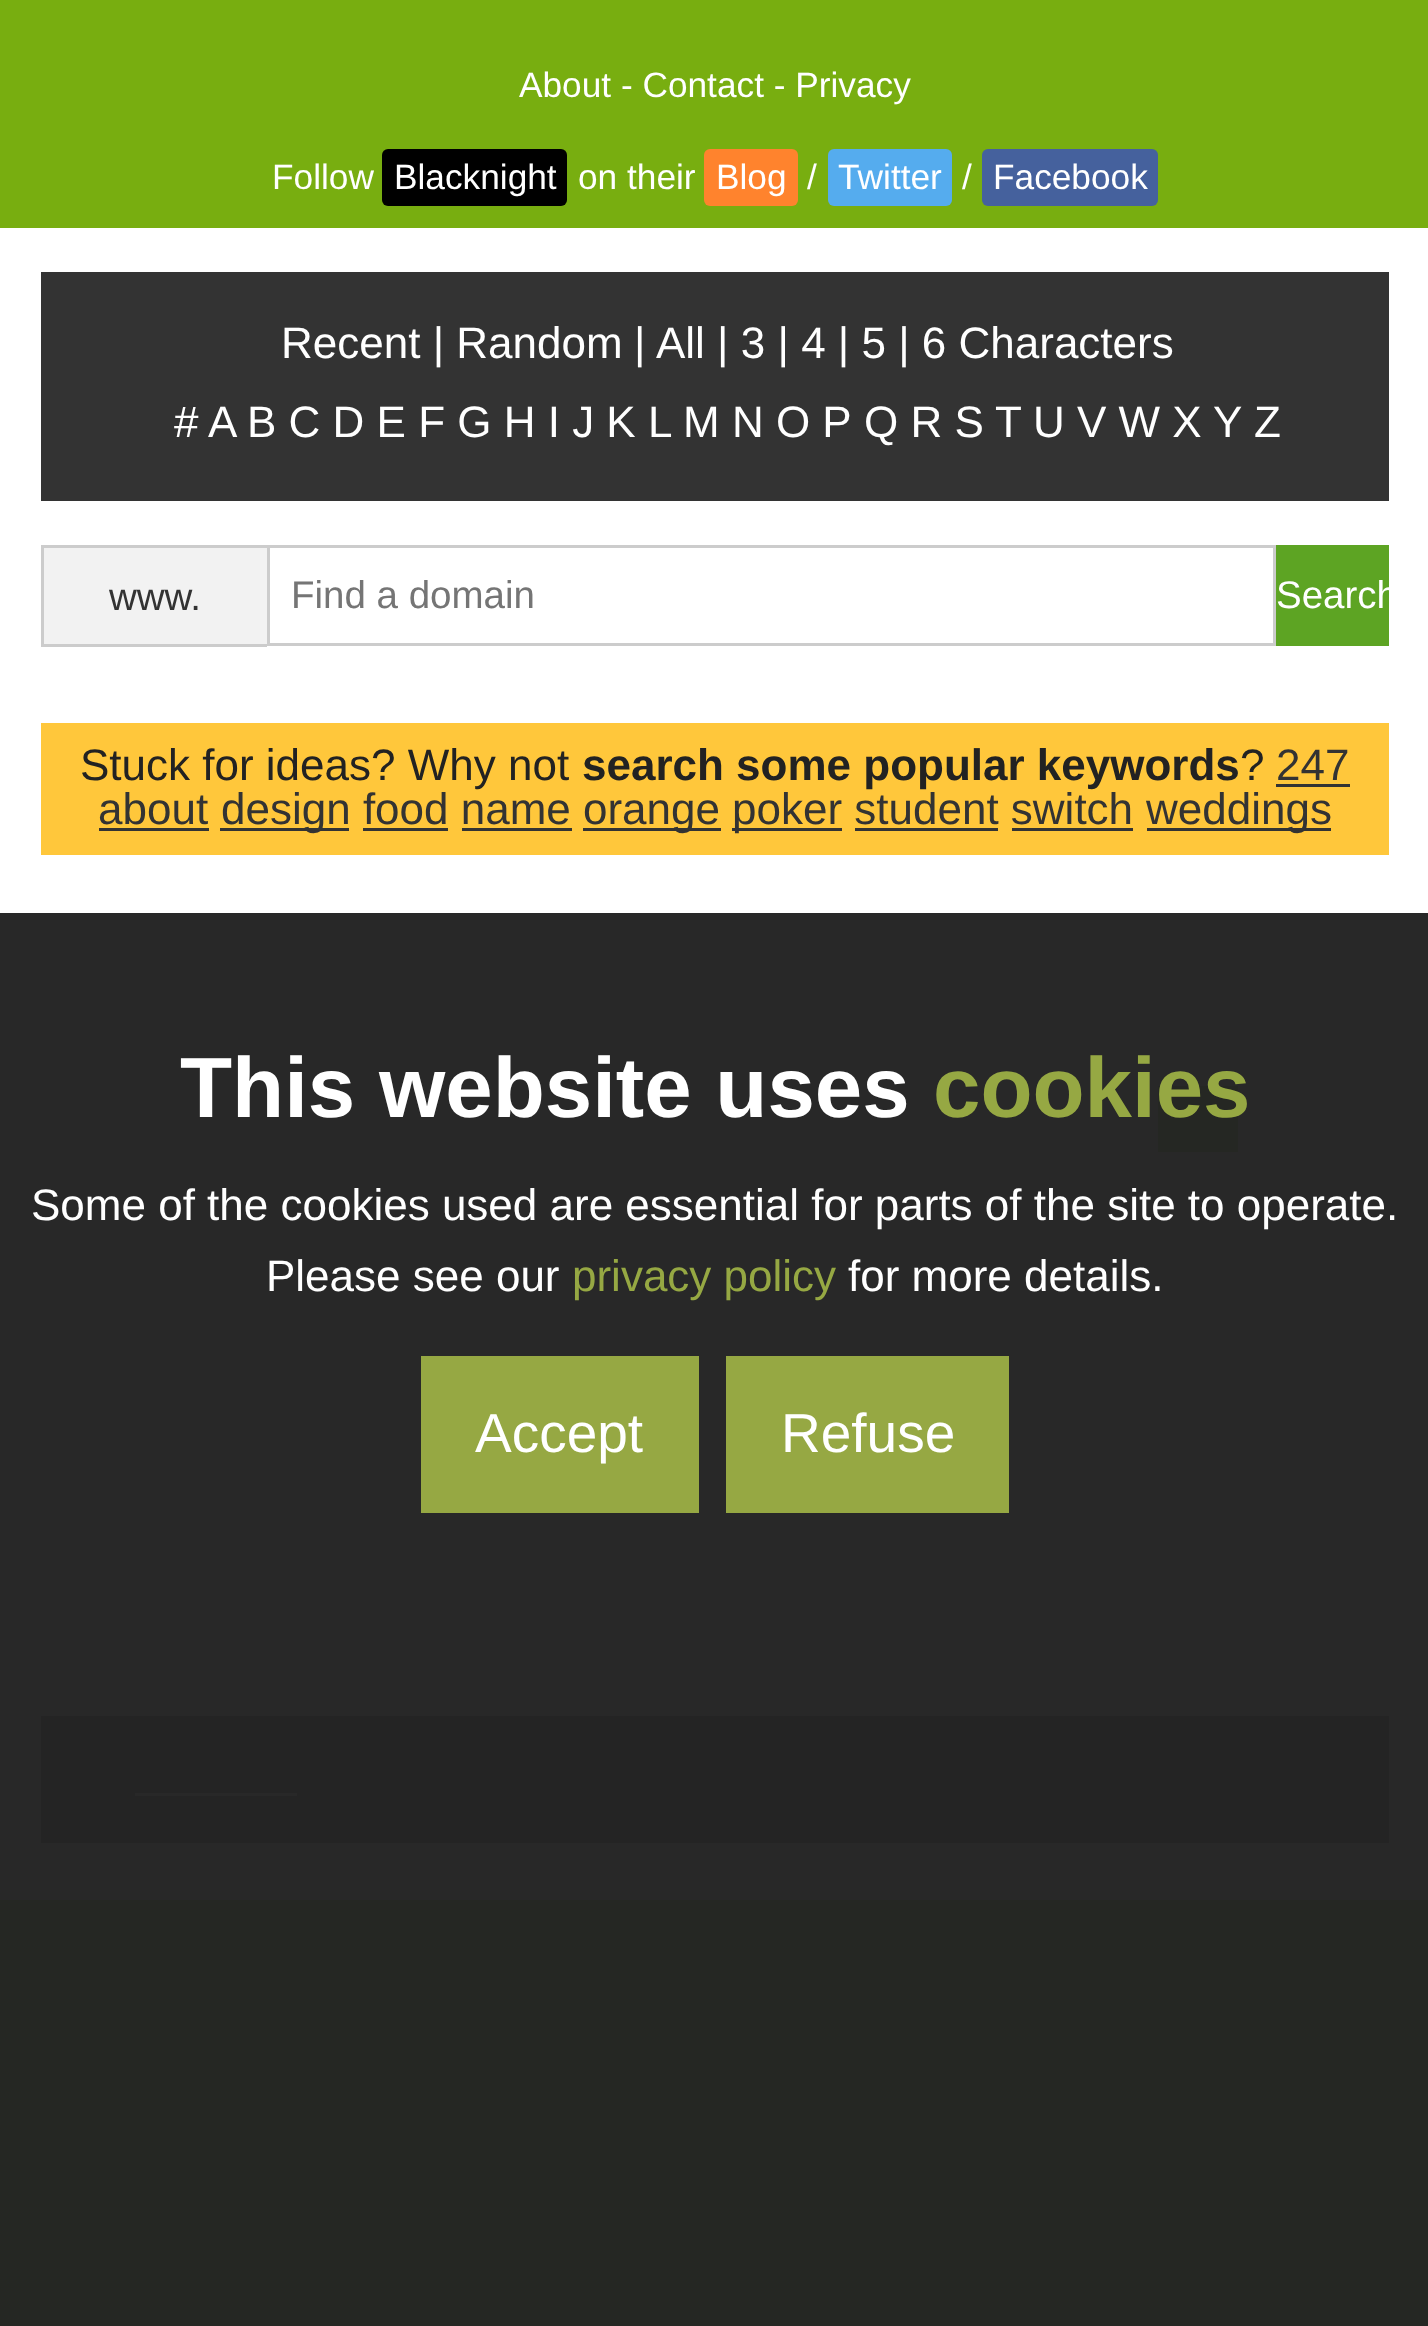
async function draw(canvas) {
  canvas.width = 1428
  canvas.height = 2326
  const ctx = canvas.getContext('2d')
  ctx.miterLimit = 4
  ctx.fontKerning = 'normal'

  ctx.fillStyle = '#78ae10'
  ctx.fillRect(0, 0, 1428, 2326)
  ctx.fillStyle = '#fff'
  ctx.fillRect(0, 228, 1428, 1672)
  ctx.font = '35.25px Liberation Sans'
  ctx.fillText('About - Contact - Privacy', 519, 97)
  ctx.fillText('Follow', 272, 189)
  ctx.fillStyle = '#000'
  ctx.beginPath()
  ctx.roundRect(382, 149, 185, 57, 6)
  ctx.fill()
  ctx.fillStyle = '#fff'
  ctx.fillText('Blacknight', 394, 189)
  ctx.fillText('on their', 578, 189)
  ctx.fillStyle = '#ff832d'
  ctx.beginPath()
  ctx.roundRect(704, 149, 94, 57, 6)
  ctx.fill()
  ctx.fillStyle = '#fff'
  ctx.fillText('Blog', 716, 189)
  ctx.fillText('/', 807, 189)
  ctx.fillStyle = '#55acee'
  ctx.beginPath()
  ctx.roundRect(828, 149, 124, 57, 6)
  ctx.fill()
  ctx.fillStyle = '#fff'
  ctx.fillText('Twitter', 838, 189)
  ctx.fillText('/', 962, 189)
  ctx.fillStyle = '#45619d'
  ctx.beginPath()
  ctx.roundRect(982, 149, 176, 57, 6)
  ctx.fill()
  ctx.fillStyle = '#fff'
  ctx.fillText('Facebook', 993, 189)
  ctx.fillStyle = '#333'
  ctx.fillRect(41, 272, 1348, 229)
  ctx.font = '44px Liberation Sans'
  ctx.fillStyle = '#fff'
  ctx.fillText('Recent | Random', 281, 358)
  ctx.fillText('|', 634, 358)
  ctx.fillText('All | 3 | 4 | 5 | 6 Characters', 656, 358)
  ctx.fillText('#', 174, 437)
  ctx.fillText('A', 208, 437)
  ctx.fillText('B C D E F G H I J K L', 247, 437)
  ctx.fillText('M N O P', 683, 437)
  ctx.fillText('Q R S', 864, 437)
  ctx.fillText('T', 995, 437)
  ctx.fillText('U V W X', 1033, 437)
  ctx.fillText('Y', 1213, 437)
  ctx.fillText('Z', 1254, 437)
  ctx.fillStyle = '#f2f2f2'
  ctx.fillRect(44, 548, 223, 96)
  ctx.fillStyle = '#ccc'
  ctx.fillRect(41, 545, 226, 3)
  ctx.fillRect(41, 644, 226, 3)
  ctx.fillRect(41, 545, 3, 101)
  ctx.font = '38.5px Liberation Sans'
  ctx.fillStyle = '#333'
  ctx.fillText('www.', 109, 610)
  ctx.strokeStyle = '#ccc'
  ctx.lineWidth = 3
  ctx.strokeRect(268.5, 546.5, 1006, 98)
  ctx.fillStyle = '#757575'
  ctx.fillText('Find a domain', 291, 608)
  ctx.fillStyle = '#5da423'
  ctx.fillRect(1276, 545, 113, 101)
  ctx.save()
  ctx.beginPath()
  ctx.rect(1276, 545, 113, 101)
  ctx.clip()
  ctx.fillStyle = '#fff'
  ctx.fillText('Search', 1276, 608)
  ctx.restore()
  ctx.fillStyle = '#ffc73b'
  ctx.fillRect(41, 723, 1348, 132)
  ctx.font = '44px Liberation Sans'
  ctx.fillStyle = '#222'
  ctx.fillText('Stuck for ideas? Why not', 80, 780)
  ctx.font = 'bold 44px Liberation Sans'
  ctx.fillText('search some popular keywords', 582, 780)
  ctx.font = '44px Liberation Sans'
  ctx.fillText('?', 1240, 780)
  ctx.fillStyle = '#333'
  ctx.fillText('247', 1276, 780)
  ctx.fillRect(1276, 784, 74, 3)
  ctx.fillText('about', 98, 824)
  ctx.fillRect(99, 828, 110, 3)
  ctx.fillRect(220, 828, 129, 3)
  ctx.fillText('design food name', 221, 824)
  ctx.fillRect(583, 828, 138, 3)
  ctx.fillText('orange', 583, 824)
  ctx.fillRect(732, 828, 110, 3)
  ctx.fillText('poker student switch', 732, 824)
  ctx.fillRect(1147, 828, 184, 3)
  ctx.fillText('weddings', 1146, 824)
  ctx.fillRect(363, 828, 85, 3)
  ctx.fillRect(462, 828, 110, 3)
  ctx.fillRect(855, 828, 143, 3)
  ctx.fillRect(1012, 828, 121, 3)
  ctx.fillStyle = '#dfdfdf'
  ctx.fillRect(41, 990, 1348, 121)
  ctx.fillStyle = '#78ae10'
  ctx.fillRect(1158, 1086, 80, 66)
  ctx.fillStyle = '#333'
  ctx.fillRect(41, 1716, 1348, 127)
  ctx.fillStyle = '#fff'
  ctx.fillRect(135, 1793, 162, 3)
  ctx.fillStyle = '#242424fa'
  ctx.fillRect(0, 913, 1428, 1413)
  ctx.font = 'bold 85.25px Liberation Sans'
  ctx.fillStyle = '#fff'
  ctx.fillText('This website uses', 180, 1117)
  ctx.fillStyle = '#96a843'
  ctx.fillText('cookies', 933, 1117)
  ctx.font = '44px Liberation Sans'
  ctx.fillStyle = '#fff'
  ctx.fillText('Some of the cookies used are essential for parts of the site to operate.', 31, 1220)
  ctx.fillText('Please see our', 266, 1291)
  ctx.fillStyle = '#96a843'
  ctx.fillText('privacy policy', 572, 1291)
  ctx.fillStyle = '#fff'
  ctx.fillText('for more details.', 848, 1291)
  ctx.fillStyle = '#96a843'
  ctx.fillRect(421, 1356, 278, 157)
  ctx.font = '55px Liberation Sans'
  ctx.fillStyle = '#fff'
  ctx.fillText('Accept', 475, 1452)
  ctx.fillStyle = '#96a843'
  ctx.fillRect(726, 1356, 283, 157)
  ctx.fillStyle = '#fff'
  ctx.fillText('Refuse', 781, 1452)
}

draw(document.querySelector('canvas'))
